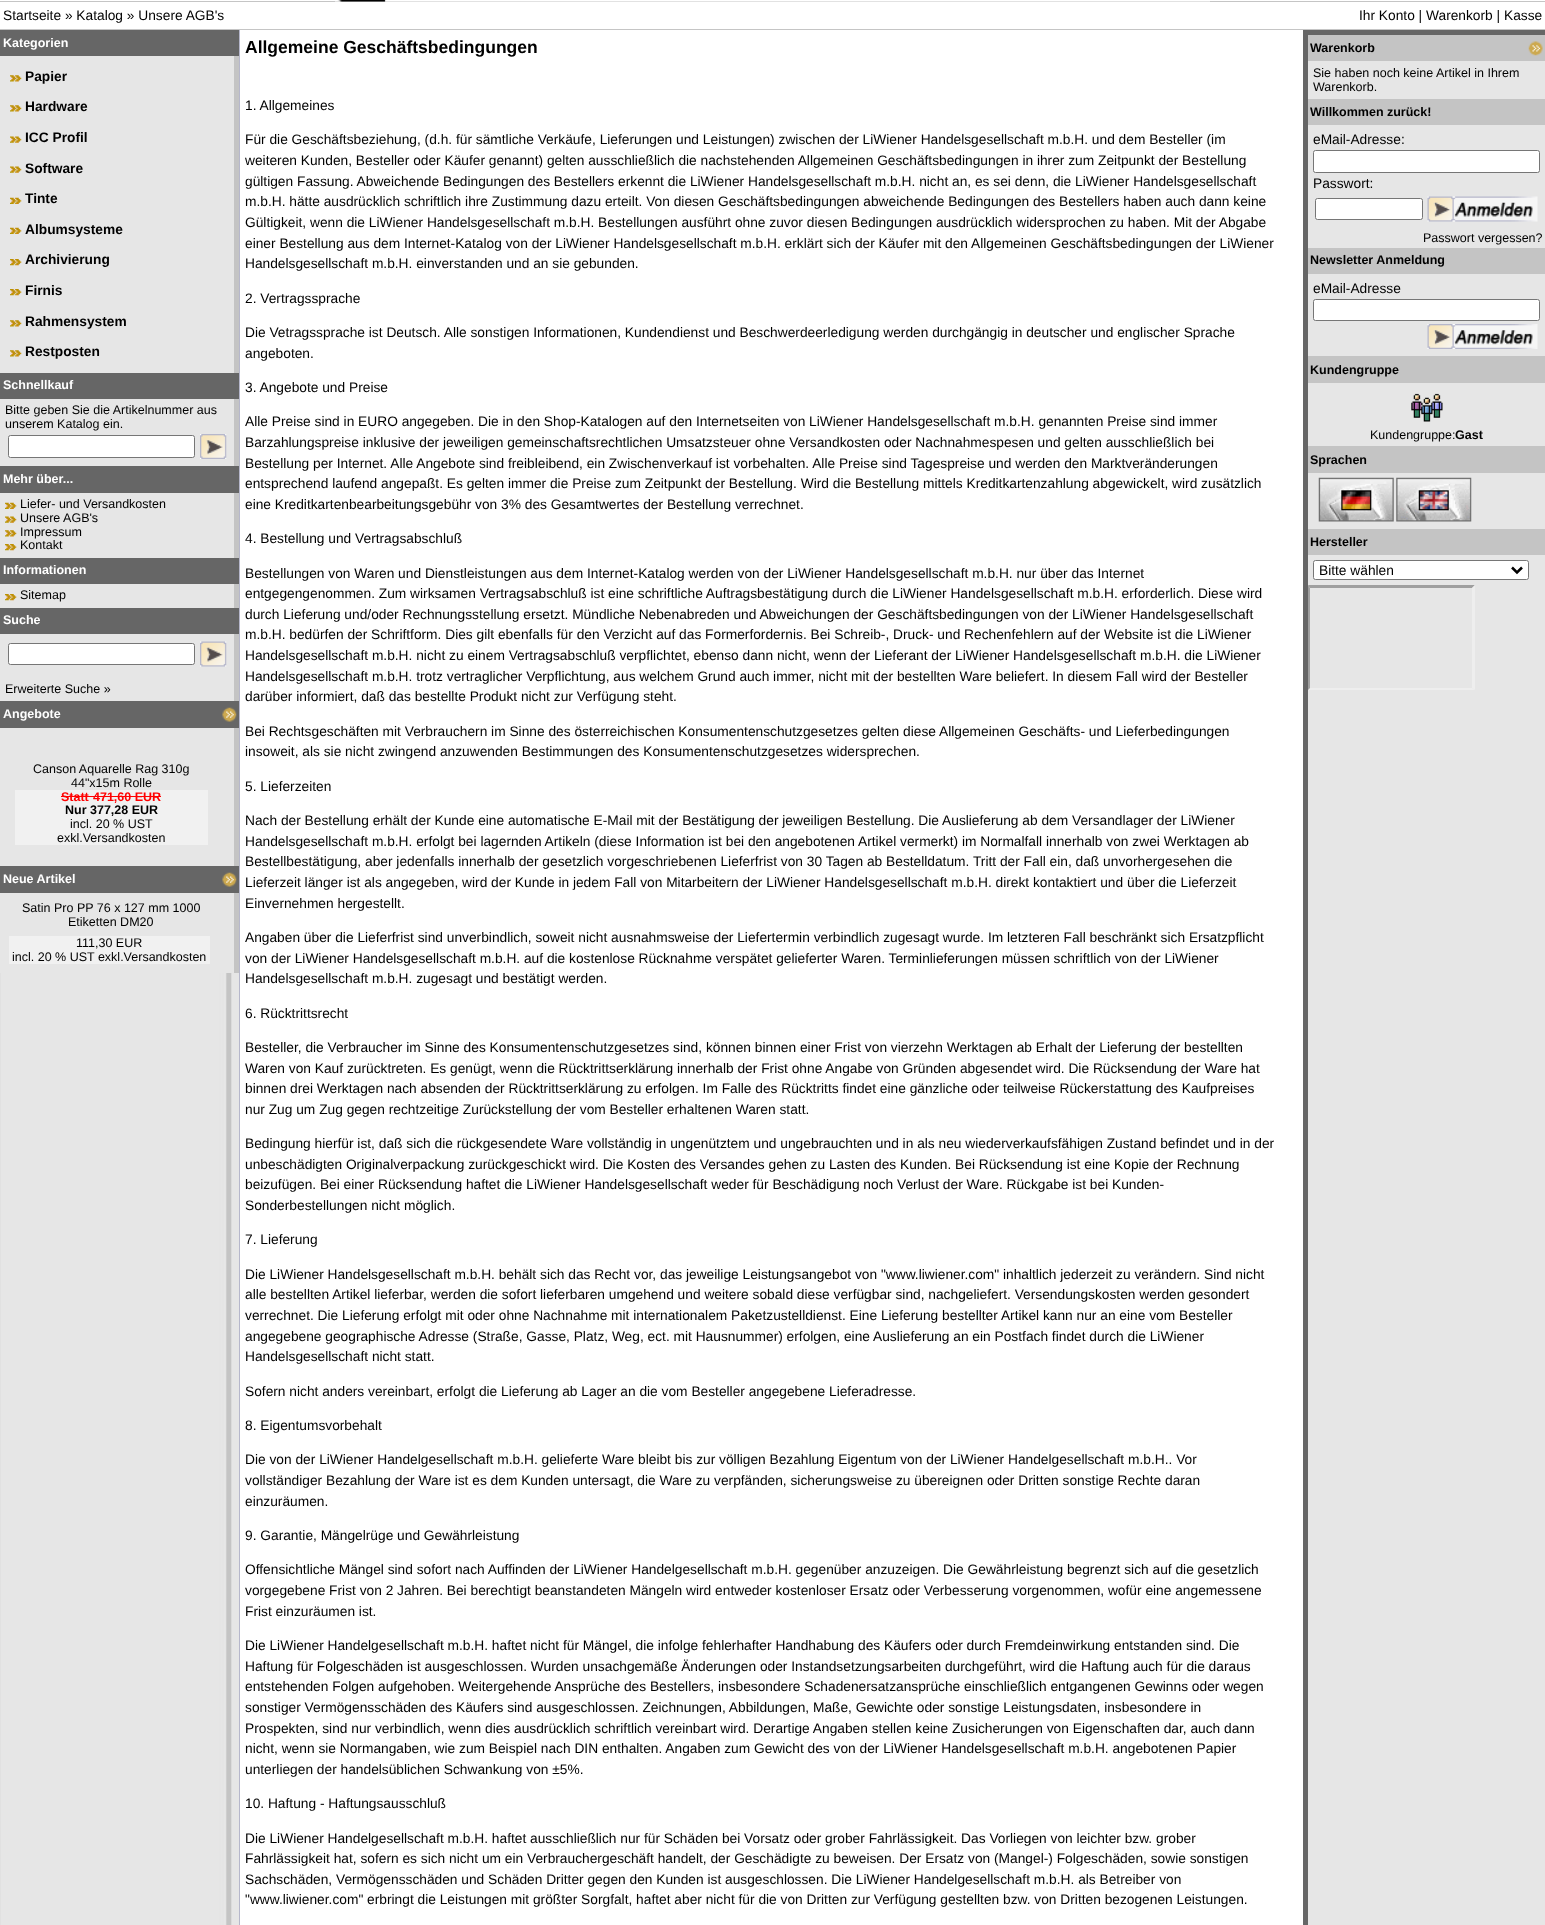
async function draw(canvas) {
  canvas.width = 1545
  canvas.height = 1925
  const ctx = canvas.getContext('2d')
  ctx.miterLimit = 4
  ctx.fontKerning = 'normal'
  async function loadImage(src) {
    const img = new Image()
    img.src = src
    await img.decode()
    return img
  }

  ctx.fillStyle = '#fff'
  ctx.fillRect(0, 0, 1545, 1925)
  ctx.fillStyle = '#c5c5c5'
  ctx.fillRect(0, 1, 1545, 1)
  ctx.drawImage(await loadImage('image0.png'), 335, 0, 875, 2)
  ctx.fillRect(0, 29, 1545, 1)
  ctx.font = '13.75px Liberation Sans'
  ctx.fillStyle = '#000'
  ctx.fillText('Startseite » Katalog » Unsere AGB\'s', 3, 20)
  ctx.fillText('Ihr Konto | Warenkorb | Kasse', 1359, 20)
  ctx.drawImage(await loadImage('image1.png'), 0, 973, 239, 952)
  ctx.fillStyle = '#b6b7cb'
  ctx.fillRect(239, 30, 1, 1895)
  ctx.fillStyle = '#666'
  ctx.fillRect(0, 30, 239, 26)
  ctx.font = 'bold 12.5px Liberation Sans'
  ctx.fillStyle = '#fff'
  ctx.fillText('Kategorien', 3, 47)
  ctx.fillStyle = '#e6e6e6'
  ctx.fillRect(0, 56, 234, 317)
  ctx.fillStyle = '#c4c4c4'
  ctx.fillRect(234, 56, 5, 317)
  ctx.drawImage(await loadImage('image2.png'), 10, 75, 12, 7)
  ctx.font = 'bold 13.75px Liberation Sans'
  ctx.fillStyle = '#000'
  ctx.fillText('Papier', 25, 81)
  ctx.drawImage(await loadImage('image2.png'), 10, 105, 12, 7)
  ctx.fillText('Hardware', 25, 111)
  ctx.drawImage(await loadImage('image3.png'), 10, 136, 12, 7)
  ctx.fillText('ICC Profil', 25, 142)
  ctx.drawImage(await loadImage('image3.png'), 10, 166, 12, 7)
  ctx.fillText('Software', 25, 173)
  ctx.drawImage(await loadImage('image4.png'), 10, 197, 12, 7)
  ctx.fillText('Tinte', 25, 203)
  ctx.drawImage(await loadImage('image4.png'), 10, 227, 12, 7)
  ctx.fillText('Albumsysteme', 25, 234)
  ctx.drawImage(await loadImage('image5.png'), 10, 259, 12, 7)
  ctx.fillText('Archivierung', 25, 264)
  ctx.drawImage(await loadImage('image5.png'), 10, 289, 12, 7)
  ctx.fillText('Firnis', 25, 295)
  ctx.drawImage(await loadImage('image2.png'), 10, 320, 12, 7)
  ctx.fillText('Rahmensystem', 25, 326)
  ctx.drawImage(await loadImage('image2.png'), 10, 350, 12, 7)
  ctx.fillText('Restposten', 25, 356)
  ctx.fillStyle = '#666'
  ctx.fillRect(0, 373, 239, 26)
  ctx.font = 'bold 12.5px Liberation Sans'
  ctx.fillStyle = '#fff'
  ctx.fillText('Schnellkauf', 3, 389)
  ctx.fillStyle = '#e6e6e6'
  ctx.fillRect(0, 399, 234, 67)
  ctx.fillStyle = '#c4c4c4'
  ctx.fillRect(234, 399, 5, 67)
  ctx.font = '12.5px Liberation Sans'
  ctx.fillStyle = '#000'
  ctx.fillText('Bitte geben Sie die Artikelnummer aus', 5, 414)
  ctx.fillText('unserem Katalog ein.', 5, 428)
  ctx.fillStyle = '#fff'
  ctx.beginPath()
  ctx.roundRect(8.5, 435.5, 186, 22, 2)
  ctx.fill()
  ctx.strokeStyle = '#767676'
  ctx.stroke()
  ctx.drawImage(await loadImage('image6.png'), 200, 434, 27, 25)
  ctx.fillStyle = '#666'
  ctx.fillRect(0, 466, 239, 27)
  ctx.font = 'bold 12.5px Liberation Sans'
  ctx.fillStyle = '#fff'
  ctx.fillText('Mehr über...', 3, 483)
  ctx.fillStyle = '#e6e6e6'
  ctx.fillRect(0, 493, 234, 65)
  ctx.fillStyle = '#c4c4c4'
  ctx.fillRect(234, 493, 5, 65)
  ctx.drawImage(await loadImage('image4.png'), 5, 502, 12, 7)
  ctx.font = '12.5px Liberation Sans'
  ctx.fillStyle = '#000'
  ctx.fillText('Liefer- und Versandkosten', 20, 508)
  ctx.drawImage(await loadImage('image3.png'), 5, 516, 12, 7)
  ctx.fillText('Unsere AGB\'s', 20, 522)
  ctx.drawImage(await loadImage('image2.png'), 5, 530, 12, 7)
  ctx.fillText('Impressum', 20, 536)
  ctx.drawImage(await loadImage('image5.png'), 5, 544, 12, 7)
  ctx.fillText('Kontakt', 20, 549)
  ctx.fillStyle = '#666'
  ctx.fillRect(0, 558, 239, 26)
  ctx.font = 'bold 12.5px Liberation Sans'
  ctx.fillStyle = '#fff'
  ctx.fillText('Informationen', 3, 574)
  ctx.fillStyle = '#e6e6e6'
  ctx.fillRect(0, 584, 234, 24)
  ctx.fillStyle = '#c4c4c4'
  ctx.fillRect(234, 584, 5, 24)
  ctx.drawImage(await loadImage('image5.png'), 5, 594, 12, 7)
  ctx.font = '12.5px Liberation Sans'
  ctx.fillStyle = '#000'
  ctx.fillText('Sitemap', 20, 599)
  ctx.fillStyle = '#666'
  ctx.fillRect(0, 608, 239, 26)
  ctx.font = 'bold 12.5px Liberation Sans'
  ctx.fillStyle = '#fff'
  ctx.fillText('Suche', 3, 624)
  ctx.fillStyle = '#e6e6e6'
  ctx.fillRect(0, 634, 234, 67)
  ctx.fillStyle = '#c4c4c4'
  ctx.fillRect(234, 634, 5, 67)
  ctx.fillStyle = '#fff'
  ctx.beginPath()
  ctx.roundRect(8.5, 643.5, 186, 21, 2)
  ctx.fill()
  ctx.stroke()
  ctx.drawImage(await loadImage('image7.png'), 200, 641, 27, 26)
  ctx.font = '12.5px Liberation Sans'
  ctx.fillStyle = '#000'
  ctx.fillText('Erweiterte Suche »', 5, 693)
  ctx.fillStyle = '#666'
  ctx.fillRect(0, 701, 239, 27)
  ctx.font = 'bold 12.5px Liberation Sans'
  ctx.fillStyle = '#fff'
  ctx.fillText('Angebote', 3, 718)
  ctx.drawImage(await loadImage('image8.png'), 222, 707, 15, 15)
  ctx.fillStyle = '#e6e6e6'
  ctx.fillRect(0, 728, 234, 138)
  ctx.fillStyle = '#c4c4c4'
  ctx.fillRect(234, 728, 5, 138)
  ctx.font = '12.5px Liberation Sans'
  ctx.fillStyle = '#000'
  ctx.fillText('Canson Aquarelle Rag 310g', 33, 773)
  ctx.fillText('44"x15m Rolle', 71, 787)
  ctx.fillStyle = '#f1f1f1'
  ctx.fillRect(15, 790, 193, 55)
  ctx.font = 'bold 12.5px Liberation Sans'
  ctx.fillStyle = '#f00'
  ctx.fillText('Statt', 61, 801)
  ctx.fillRect(61, 796, 32, 1)
  ctx.fillText('471,60 EUR', 93, 801)
  ctx.fillRect(93, 796, 68, 1)
  ctx.fillStyle = '#000'
  ctx.fillText('Nur 377,28 EUR', 65, 814)
  ctx.font = '12.5px Liberation Sans'
  ctx.fillText('incl. 20 % UST', 70, 828)
  ctx.fillText('exkl.Versandkosten', 57, 842)
  ctx.fillStyle = '#666'
  ctx.fillRect(0, 866, 239, 27)
  ctx.font = 'bold 12.5px Liberation Sans'
  ctx.fillStyle = '#fff'
  ctx.fillText('Neue Artikel', 3, 883)
  ctx.drawImage(await loadImage('image8.png'), 222, 872, 15, 15)
  ctx.fillStyle = '#e6e6e6'
  ctx.fillRect(0, 893, 234, 80)
  ctx.fillStyle = '#c4c4c4'
  ctx.fillRect(234, 893, 5, 80)
  ctx.font = '12.5px Liberation Sans'
  ctx.fillStyle = '#000'
  ctx.fillText('Satin Pro PP 76 x 127 mm 1000', 22, 912)
  ctx.fillText('Etiketten DM20', 68, 926)
  ctx.fillStyle = '#f1f1f1'
  ctx.fillRect(9, 936, 201, 28)
  ctx.fillStyle = '#000'
  ctx.fillText('111,30 EUR', 76, 947)
  ctx.fillText('incl. 20 % UST exkl.Versandkosten', 12, 961)
  ctx.font = 'bold 17.5px Liberation Sans'
  ctx.fillText('Allgemeine Geschäftsbedingungen', 245, 53)
  ctx.font = '13.75px Liberation Sans'
  ctx.fillText('1. Allgemeines', 245, 110)
  ctx.fillText('Für die Geschäftsbeziehung, (d.h. für sämtliche Verkäufe, Lieferungen und Leistungen) zwischen der LiWiener Handelsgesellschaft m.b.H. und dem Besteller (im', 245, 144)
  ctx.fillText('weiteren Kunden, Besteller oder Käufer genannt) gelten ausschließlich die nachstehenden Allgemeinen Geschäftsbedingungen in ihrer zum Zeitpunkt der Bestellung', 245, 165)
  ctx.fillText('gültigen Fassung. Abweichende Bedingungen des Bestellers erkennt die LiWiener Handelsgesellschaft m.b.H. nicht an, es sei denn, die LiWiener Handelsgesellschaft', 245, 186)
  ctx.fillText('m.b.H. hätte ausdrücklich schriftlich ihre Zustimmung dazu erteilt. Von diesen Geschäftsbedingungen abweichende Bedingungen des Bestellers haben auch dann keine', 245, 206)
  ctx.fillText('Gültigkeit, wenn die LiWiener Handelsgesellschaft m.b.H. Bestellungen ausführt ohne zuvor diesen Bedingungen ausdrücklich widersprochen zu haben. Mit der Abgabe', 245, 227)
  ctx.fillText('einer Bestellung aus dem Internet-Katalog von der LiWiener Handelsgesellschaft m.b.H. erklärt sich der Käufer mit den Allgemeinen Geschäftsbedingungen der LiWiener', 245, 248)
  ctx.fillText('Handelsgesellschaft m.b.H. einverstanden und an sie gebunden.', 245, 268)
  ctx.fillText('2. Vertragssprache', 245, 303)
  ctx.fillText('Die Vetragssprache ist Deutsch. Alle sonstigen Informationen, Kundendienst und Beschwerdeerledigung werden durchgängig in deutscher und englischer Sprache', 245, 337)
  ctx.fillText('angeboten.', 245, 358)
  ctx.fillText('3. Angebote und Preise', 245, 392)
  ctx.fillText('Alle Preise sind in EURO angegeben. Die in den Shop-Katalogen auf den Internetseiten von LiWiener Handelsgesellschaft m.b.H. genannten Preise sind immer', 245, 426)
  ctx.fillText('Barzahlungspreise inklusive der jeweiligen gemeinschaftsrechtlichen Umsatzsteuer ohne Versandkosten oder Nachnahmespesen und gelten ausschließlich bei', 245, 447)
  ctx.fillText('Bestellung per Internet. Alle Angebote sind freibleibend, ein Zwischenverkauf ist vorbehalten. Alle Preise sind Tagespreise und werden den Marktveränderungen', 245, 468)
  ctx.fillText('entsprechend laufend angepaßt. Es gelten immer die Preise zum Zeitpunkt der Bestellung. Wird die Bestellung mittels Kreditkartenzahlung abgewickelt, wird zusätzlich', 245, 488)
  ctx.fillText('eine Kreditkartenbearbeitungsgebühr von 3% des Gesamtwertes der Bestellung verrechnet.', 245, 509)
  ctx.fillText('4. Bestellung und Vertragsabschluß', 245, 543)
  ctx.fillText('Bestellungen von Waren und Dienstleistungen aus dem Internet-Katalog werden von der LiWiener Handelsgesellschaft m.b.H. nur über das Internet', 245, 578)
  ctx.fillText('entgegengenommen. Zum wirksamen Vertragsabschluß ist eine schriftliche Auftragsbestätigung durch die LiWiener Handelsgesellschaft m.b.H. erforderlich. Diese wird', 245, 598)
  ctx.fillText('durch Lieferung und/oder Rechnungsstellung ersetzt. Mündliche Nebenabreden und Abweichungen der Geschäftsbedingungen von der LiWiener Handelsgesellschaft', 245, 619)
  ctx.fillText('m.b.H. bedürfen der Schriftform. Dies gilt ebenfalls für den Verzicht auf das Formerfordernis. Bei Schreib-, Druck- und Rechenfehlern auf der Website ist die LiWiener', 245, 639)
  ctx.fillText('Handelsgesellschaft m.b.H. nicht zu einem Vertragsabschluß verpflichtet, ebenso dann nicht, wenn der Lieferant der LiWiener Handelsgesellschaft m.b.H. die LiWiener', 245, 660)
  ctx.fillText('Handelsgesellschaft m.b.H. trotz vertraglicher Verpflichtung, aus welchem Grund auch immer, nicht mit der bestellten Ware beliefert. In diesem Fall wird der Besteller', 245, 681)
  ctx.fillText('darüber informiert, daß das bestellte Produkt nicht zur Verfügung steht.', 245, 701)
  ctx.fillText('Bei Rechtsgeschäften mit Verbrauchern im Sinne des österreichischen Konsumentenschutzgesetzes gelten diese Allgemeinen Geschäfts- und Lieferbedingungen', 245, 736)
  ctx.fillText('insoweit, als sie nicht zwingend anzuwenden Bestimmungen des Konsumentenschutzgesetzes widersprechen.', 245, 756)
  ctx.fillText('5. Lieferzeiten', 245, 791)
  ctx.fillText('Nach der Bestellung erhält der Kunde eine automatische E-Mail mit der Bestätigung der jeweiligen Bestellung. Die Auslieferung ab dem Versandlager der LiWiener', 245, 825)
  ctx.fillText('Handelsgesellschaft m.b.H. erfolgt bei lagernden Artikeln (diese Information ist bei den angebotenen Artikel vermerkt) im Normalfall innerhalb von zwei Werktagen ab', 245, 846)
  ctx.fillText('Bestellbestätigung, aber jedenfalls innerhalb der gesetzlich vorgeschriebenen Lieferfrist von 30 Tagen ab Bestelldatum. Tritt der Fall ein, daß unvorhergesehen die', 245, 866)
  ctx.fillText('Lieferzeit länger ist als angegeben, wird der Kunde in jedem Fall von Mitarbeitern der LiWiener Handelsgesellschaft m.b.H. direkt kontaktiert und über die Lieferzeit', 245, 887)
  ctx.fillText('Einvernehmen hergestellt.', 245, 908)
  ctx.fillText('Angaben über die Lieferfrist sind unverbindlich, soweit nicht ausnahmsweise der Liefertermin verbindlich zugesagt wurde. Im letzteren Fall beschränkt sich Ersatzpflicht', 245, 942)
  ctx.fillText('von der LiWiener Handelsgesellschaft m.b.H. auf die kostenlose Rücknahme verspätet gelieferter Waren. Terminlieferungen müssen schriftlich von der LiWiener', 245, 963)
  ctx.fillText('Handelsgesellschaft m.b.H. zugesagt und bestätigt werden.', 245, 983)
  ctx.fillText('6. Rücktrittsrecht', 245, 1018)
  ctx.fillText('Besteller, die Verbraucher im Sinne des Konsumentenschutzgesetzes sind, können binnen einer Frist von vierzehn Werktagen ab Erhalt der Lieferung der bestellten', 245, 1052)
  ctx.fillText('Waren von Kauf zurücktreten. Es genügt, wenn die Rücktrittserklärung innerhalb der Frist ohne Angabe von Gründen abgesendet wird. Die Rücksendung der Ware hat', 245, 1073)
  ctx.fillText('binnen drei Werktagen nach absenden der Rücktrittserklärung zu erfolgen. Im Falle des Rücktritts findet eine gänzliche oder teilweise Rückerstattung des Kaufpreises', 245, 1093)
  ctx.fillText('nur Zug um Zug gegen rechtzeitige Zurückstellung der vom Besteller erhaltenen Waren statt.', 245, 1114)
  ctx.fillText('Bedingung hierfür ist, daß sich die rückgesendete Ware vollständig in ungenütztem und ungebrauchten und in als neu wiederverkaufsfähigen Zustand befindet und in der', 245, 1148)
  ctx.fillText('unbeschädigten Originalverpackung zurückgeschickt wird. Die Kosten des Versandes gehen zu Lasten des Kunden. Bei Rücksendung ist eine Kopie der Rechnung', 245, 1169)
  ctx.fillText('beizufügen. Bei einer Rücksendung haftet die LiWiener Handelsgesellschaft weder für Beschädigung noch Verlust der Ware. Rückgabe ist bei Kunden-', 245, 1189)
  ctx.fillText('Sonderbestellungen nicht möglich.', 245, 1210)
  ctx.fillText('7. Lieferung', 245, 1244)
  ctx.fillText('Die LiWiener Handelsgesellschaft m.b.H. behält sich das Recht vor, das jeweilige Leistungsangebot von "www.liwiener.com" inhaltlich jederzeit zu verändern. Sind nicht', 245, 1279)
  ctx.fillText('alle bestellten Artikel lieferbar, werden die sofort lieferbaren umgehend und weitere sobald diese verfügbar sind, nachgeliefert. Versendungskosten werden gesondert', 245, 1299)
  ctx.fillText('verrechnet. Die Lieferung erfolgt mit oder ohne Nachnahme mit internationalem Paketzustelldienst. Eine Lieferung bestellter Artikel kann nur an eine vom Besteller', 245, 1320)
  ctx.fillText('angegebene geographische Adresse (Straße, Gasse, Platz, Weg, ect. mit Hausnummer) erfolgen, eine Auslieferung an ein Postfach findet durch die LiWiener', 245, 1341)
  ctx.fillText('Handelsgesellschaft nicht statt.', 245, 1361)
  ctx.fillText('Sofern nicht anders vereinbart, erfolgt die Lieferung ab Lager an die vom Besteller angegebene Lieferadresse.', 245, 1396)
  ctx.fillText('8. Eigentumsvorbehalt', 245, 1430)
  ctx.fillText('Die von der LiWiener Handelgesellschaft m.b.H. gelieferte Ware bleibt bis zur völligen Bezahlung Eigentum von der LiWiener Handelgesellschaft m.b.H.. Vor', 245, 1464)
  ctx.fillText('vollständiger Bezahlung der Ware ist es dem Kunden untersagt, die Ware zu verpfänden, sicherungsweise zu übereignen oder Dritten sonstige Rechte daran', 245, 1485)
  ctx.fillText('einzuräumen.', 245, 1506)
  ctx.fillText('9. Garantie, Mängelrüge und Gewährleistung', 245, 1540)
  ctx.fillText('Offensichtliche Mängel sind sofort nach Auffinden der LiWiener Handelgesellschaft m.b.H. gegenüber anzuzeigen. Die Gewährleistung begrenzt sich auf die gesetzlich', 245, 1574)
  ctx.fillText('vorgegebene Frist von 2 Jahren. Bei berechtigt beanstandeten Mängeln wird entweder kostenloser Ersatz oder Verbesserung vorgenommen, wofür eine angemessene', 245, 1595)
  ctx.fillText('Frist einzuräumen ist.', 245, 1616)
  ctx.fillText('Die LiWiener Handelgesellschaft m.b.H. haftet nicht für Mängel, die infolge fehlerhafter Handhabung des Käufers oder durch Fremdeinwirkung entstanden sind. Die', 245, 1650)
  ctx.fillText('Haftung für Folgeschäden ist ausgeschlossen. Wurden unsachgemäße Änderungen oder Instandsetzungsarbeiten durchgeführt, wird die Haftung auch für die daraus', 245, 1671)
  ctx.fillText('entstehenden Folgen aufgehoben. Weitergehende Ansprüche des Bestellers, insbesondere Schadenersatzansprüche einschließlich entgangenen Gewinns oder wegen', 245, 1691)
  ctx.fillText('sonstiger Vermögensschäden des Käufers sind ausgeschlossen. Zeichnungen, Abbildungen, Maße, Gewichte oder sonstige Leistungsdaten, insbesondere in', 245, 1712)
  ctx.fillText('Prospekten, sind nur verbindlich, wenn dies ausdrücklich schriftlich vereinbart wird. Derartige Angaben stellen keine Zusicherungen von Eigenschaften dar, auch dann', 245, 1733)
  ctx.fillText('nicht, wenn sie Normangaben, wie zum Beispiel nach DIN enthalten. Angaben zum Gewicht des von der LiWiener Handelsgesellschaft m.b.H. angebotenen Papier', 245, 1753)
  ctx.fillText('unterliegen der handelsüblichen Schwankung von ±5%.', 245, 1774)
  ctx.fillText('10. Haftung - Haftungsausschluß', 245, 1808)
  ctx.fillText('Die LiWiener Handelgesellschaft m.b.H. haftet ausschließlich nur für Schäden bei Vorsatz oder grober Fahrlässigkeit. Das Vorliegen von leichter bzw. grober', 245, 1843)
  ctx.fillText('Fahrlässigkeit hat, sofern es sich nicht um ein Verbrauchergeschäft handelt, der Geschädigte zu beweisen. Der Ersatz von (Mangel-) Folgeschäden, sowie sonstigen', 245, 1863)
  ctx.fillText('Sachschäden, Vermögensschäden und Schäden Dritter gegen den Kunden ist ausgeschlossen. Die LiWiener Handelgesellschaft m.b.H. als Betreiber von', 245, 1884)
  ctx.fillText('"www.liwiener.com" erbringt die Leistungen mit größter Sorgfalt, haftet aber nicht für die von Dritten zur Verfügung gestellten bzw. von Dritten bezogenen Leistungen.', 245, 1904)
  ctx.fillStyle = '#e6e6e6'
  ctx.fillRect(1308, 61, 237, 1864)
  ctx.fillStyle = '#666'
  ctx.fillRect(1303, 30, 242, 5)
  ctx.fillRect(1303, 30, 5, 1895)
  ctx.fillStyle = '#c4c4c4'
  ctx.fillRect(1308, 35, 237, 26)
  ctx.font = 'bold 12.5px Liberation Sans'
  ctx.fillStyle = '#000'
  ctx.fillText('Warenkorb', 1310, 52)
  ctx.drawImage(await loadImage('image9.png'), 1528, 41, 15, 15)
  ctx.font = '12.5px Liberation Sans'
  ctx.fillText('Sie haben noch keine Artikel in Ihrem', 1313, 77)
  ctx.fillText('Warenkorb.', 1313, 91)
  ctx.fillStyle = '#c4c4c4'
  ctx.fillRect(1308, 99, 237, 26)
  ctx.font = 'bold 12.5px Liberation Sans'
  ctx.fillStyle = '#000'
  ctx.fillText('Willkommen zurück!', 1310, 116)
  ctx.font = '13.75px Liberation Sans'
  ctx.fillText('eMail-Adresse:', 1313, 144)
  ctx.fillStyle = '#fff'
  ctx.beginPath()
  ctx.roundRect(1313.5, 150.5, 226, 22, 2)
  ctx.fill()
  ctx.stroke()
  ctx.fillStyle = '#000'
  ctx.fillText('Passwort:', 1313, 188)
  ctx.fillStyle = '#fff'
  ctx.beginPath()
  ctx.roundRect(1315.5, 198.5, 107, 21, 2)
  ctx.fill()
  ctx.stroke()
  ctx.drawImage(await loadImage('image10.png'), 1427, 196, 111, 26)
  ctx.font = '12.5px Liberation Sans'
  ctx.fillStyle = '#000'
  ctx.fillText('Passwort vergessen?', 1423, 242)
  ctx.fillStyle = '#c4c4c4'
  ctx.fillRect(1308, 248, 237, 26)
  ctx.font = 'bold 12.5px Liberation Sans'
  ctx.fillStyle = '#000'
  ctx.fillText('Newsletter Anmeldung', 1310, 264)
  ctx.font = '13.75px Liberation Sans'
  ctx.fillText('eMail-Adresse', 1313, 293)
  ctx.fillStyle = '#fff'
  ctx.beginPath()
  ctx.roundRect(1313.5, 299.5, 226, 21, 2)
  ctx.fill()
  ctx.stroke()
  ctx.drawImage(await loadImage('image11.png'), 1427, 324, 111, 25)
  ctx.fillStyle = '#c4c4c4'
  ctx.fillRect(1308, 356, 237, 27)
  ctx.font = 'bold 12.5px Liberation Sans'
  ctx.fillStyle = '#000'
  ctx.fillText('Kundengruppe', 1310, 374)
  ctx.drawImage(await loadImage('image12.png'), 1411, 393, 32, 29)
  ctx.font = '12.5px Liberation Sans'
  ctx.fillText('Kundengruppe:', 1370, 439)
  ctx.font = 'bold 12.5px Liberation Sans'
  ctx.fillText('Gast', 1455, 439)
  ctx.fillStyle = '#c4c4c4'
  ctx.fillRect(1308, 446, 237, 27)
  ctx.fillStyle = '#000'
  ctx.fillText('Sprachen', 1310, 464)
  ctx.drawImage(await loadImage('image13.png'), 1318, 477, 76, 45)
  ctx.drawImage(await loadImage('image14.png'), 1396, 477, 76, 45)
  ctx.fillStyle = '#c4c4c4'
  ctx.fillRect(1308, 529, 237, 26)
  ctx.fillStyle = '#000'
  ctx.fillText('Hersteller', 1310, 546)
  ctx.fillStyle = '#fff'
  ctx.beginPath()
  ctx.roundRect(1313.5, 560.5, 215, 19, 2)
  ctx.fill()
  ctx.stroke()
  ctx.beginPath()
  ctx.moveTo(1512, 567.5)
  ctx.lineTo(1517, 572.5)
  ctx.lineTo(1522, 567.5)
  ctx.strokeStyle = '#000'
  ctx.lineWidth = 2.5
  ctx.stroke()
  ctx.font = '13.75px Liberation Sans'
  ctx.fillStyle = '#000'
  ctx.fillText('Bitte wählen', 1319, 575)
  ctx.fillStyle = '#9f9f9f'
  ctx.beginPath()
  ctx.moveTo(1308, 585)
  ctx.lineTo(1475, 585)
  ctx.lineTo(1472, 588)
  ctx.lineTo(1310, 588)
  ctx.closePath()
  ctx.fill()
  ctx.fillStyle = '#eee'
  ctx.beginPath()
  ctx.moveTo(1475, 585)
  ctx.lineTo(1475, 690)
  ctx.lineTo(1472, 688)
  ctx.lineTo(1472, 588)
  ctx.closePath()
  ctx.fill()
  ctx.beginPath()
  ctx.moveTo(1475, 690)
  ctx.lineTo(1308, 690)
  ctx.lineTo(1310, 688)
  ctx.lineTo(1472, 688)
  ctx.closePath()
  ctx.fill()
  ctx.fillStyle = '#9f9f9f'
  ctx.beginPath()
  ctx.moveTo(1308, 690)
  ctx.lineTo(1308, 585)
  ctx.lineTo(1310, 588)
  ctx.lineTo(1310, 688)
  ctx.closePath()
  ctx.fill()
}

draw(document.querySelector('canvas'))
